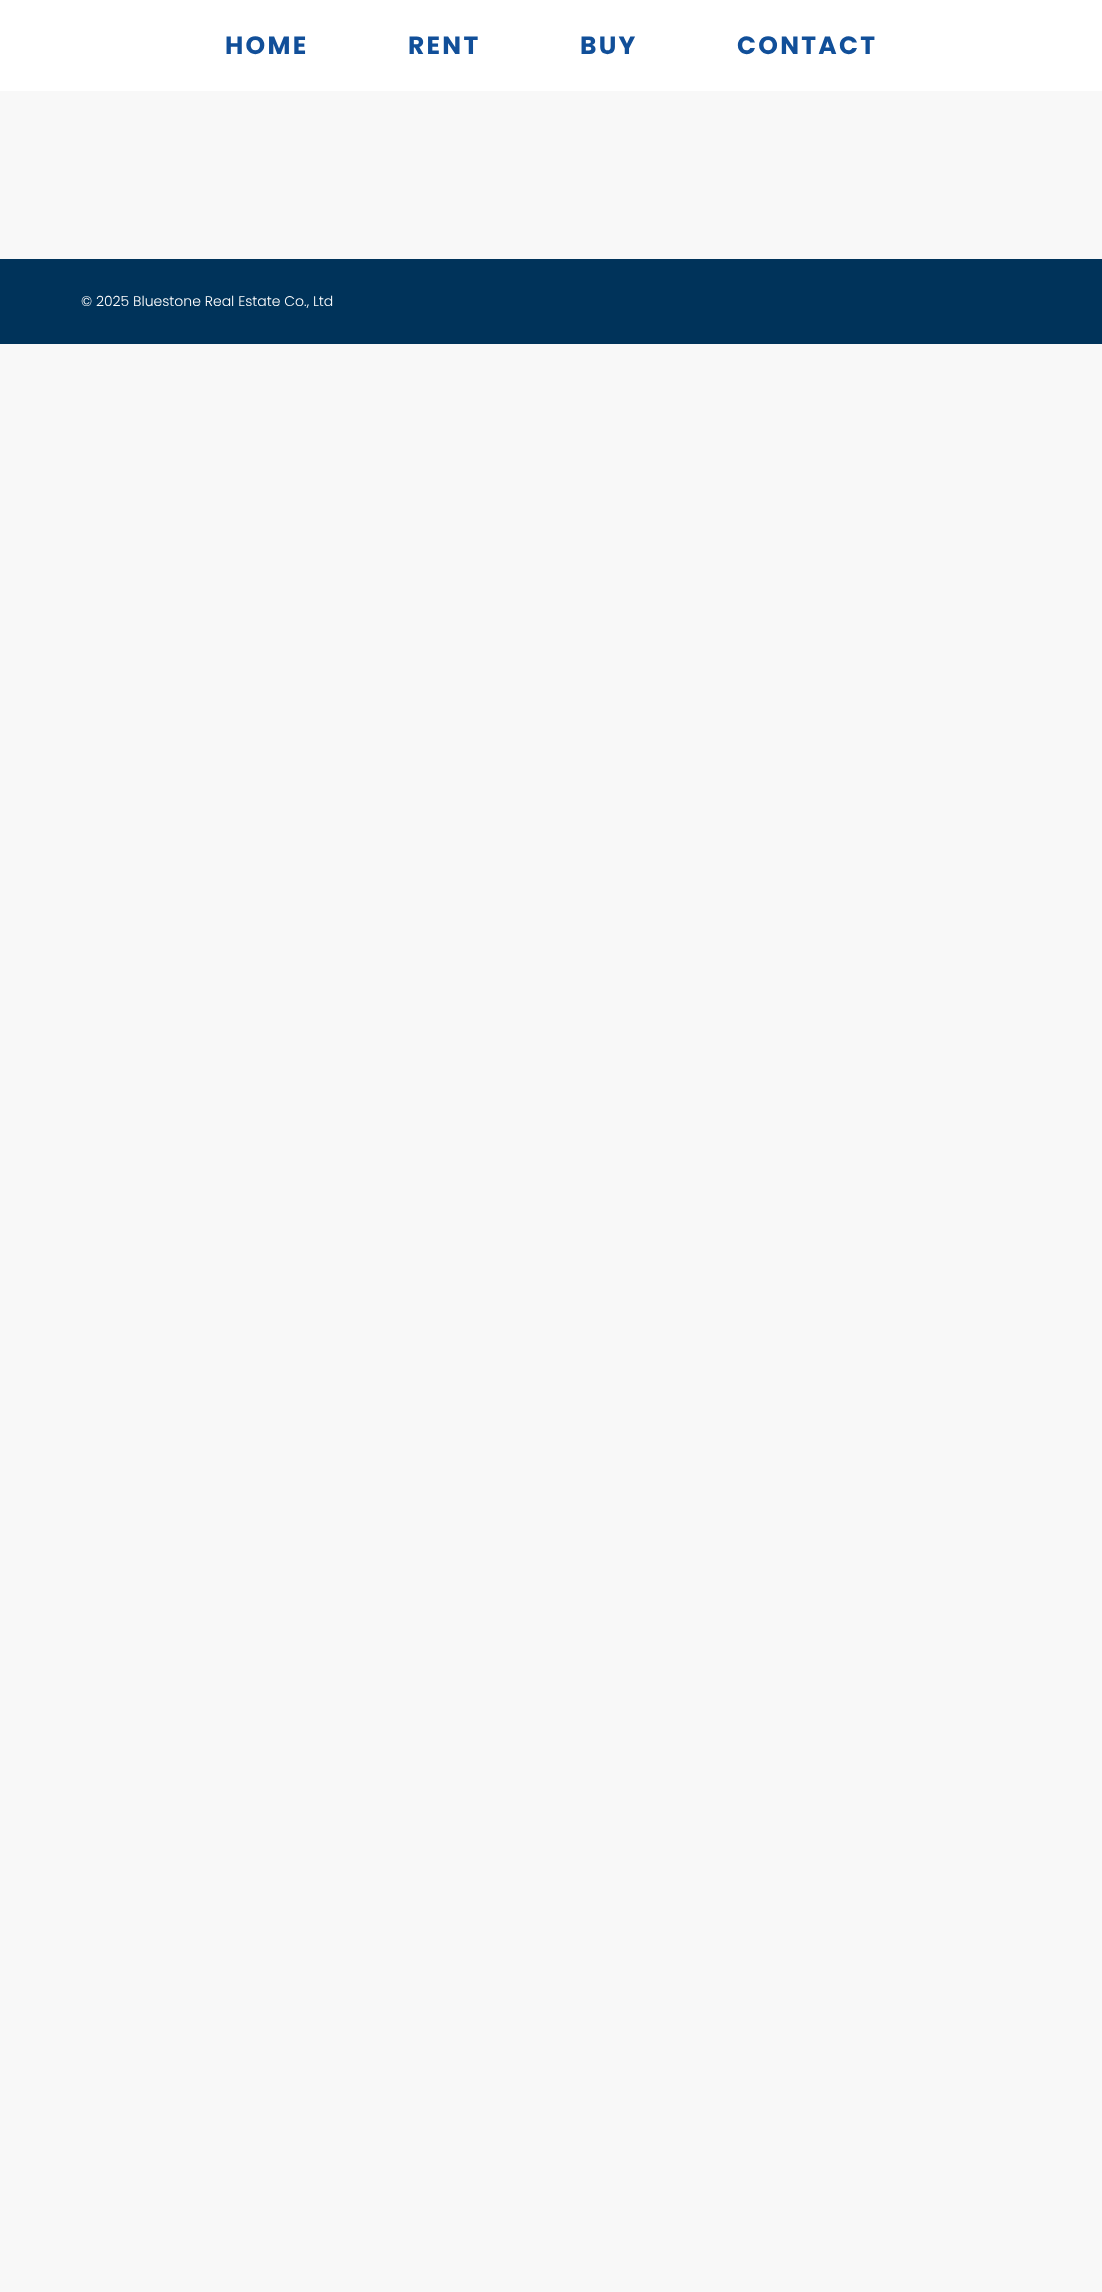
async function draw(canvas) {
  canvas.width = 1102
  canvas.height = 2292
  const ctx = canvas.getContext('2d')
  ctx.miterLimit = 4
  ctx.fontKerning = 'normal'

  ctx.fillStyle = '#f8f8f8'
  ctx.fillRect(0, 0, 1102, 2292)
  ctx.fillStyle = '#fff'
  ctx.fillRect(0, 0, 1102, 91)
  ctx.letterSpacing = '2.25px'
  ctx.font = 'bold 25px Poppins'
  ctx.fillStyle = '#114f99'
  ctx.fillText('HOME', 225, 54)
  ctx.fillText('RENT', 408, 54)
  ctx.fillText('BUY', 580, 54)
  ctx.fillText('CONTACT', 737, 54)
  ctx.fillStyle = '#00335a'
  ctx.fillRect(0, 259, 1102, 85)
  ctx.letterSpacing = '0px'
  ctx.font = '300 14px Poppins'
  ctx.fillStyle = '#fff'
  ctx.fillText('© 2025 Bluestone Real Estate Co., Ltd', 81, 306)
}

draw(document.querySelector('canvas'))
